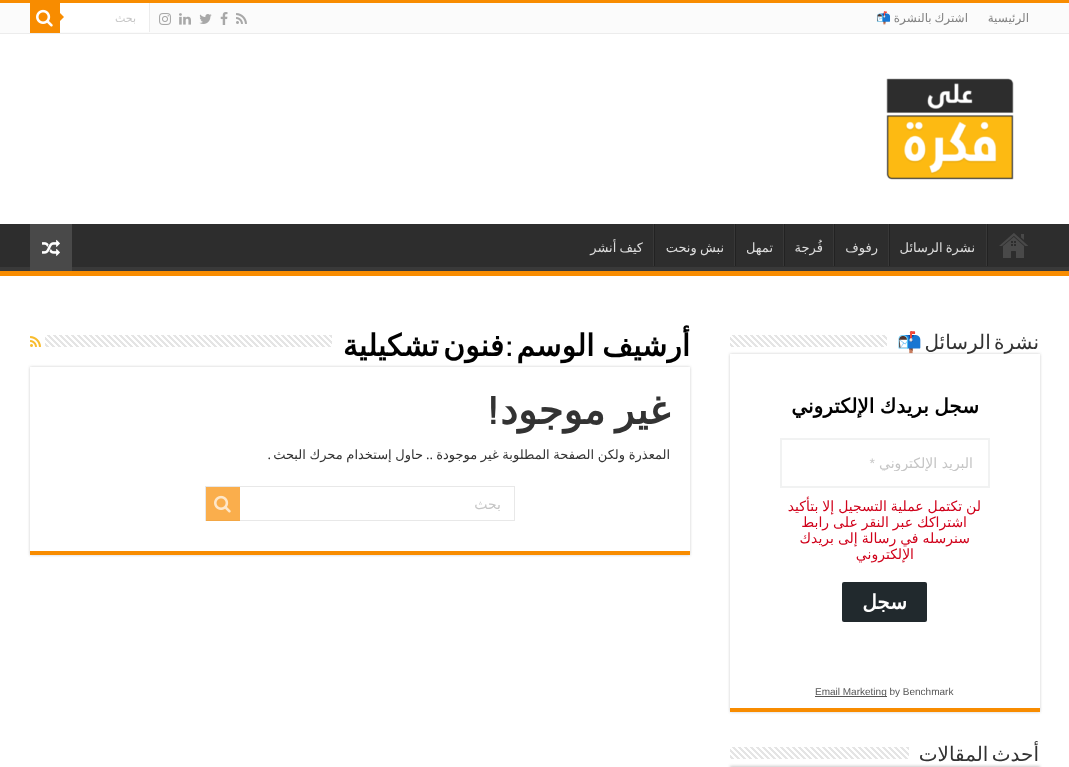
async function draw(canvas) {
  canvas.width = 1069
  canvas.height = 767
  const ctx = canvas.getContext('2d')
  ctx.miterLimit = 4
  ctx.fontKerning = 'normal'
  async function loadImage(src) {
    const img = new Image()
    img.src = src
    await img.decode()
    return img
  }

  ctx.fillStyle = '#fff'
  ctx.fillRect(0, 0, 1069, 767)
  ctx.fillStyle = '#f88c00'
  ctx.fillRect(0, 0, 1069, 3)
  ctx.fillStyle = '#fbfbfb'
  ctx.fillRect(0, 3, 1069, 30)
  ctx.fillStyle = '#ececec'
  ctx.fillRect(0, 33, 1069, 1)
  ctx.direction = 'rtl'
  ctx.font = '12px DejaVu Sans'
  ctx.fillStyle = '#838383'
  ctx.fillText('الرئيسية', 1029, 22)
  ctx.wordSpacing = '-1px'
  ctx.fillText('اشترك بالنشرة', 968, 22)
  ctx.wordSpacing = '0px'
  ctx.font = '12px Noto Color Emoji'
  ctx.fillText('📬', 891, 22)
  ctx.drawImage(await loadImage('image0.png'), 236, 13, 11, 11)
  ctx.drawImage(await loadImage('image1.png'), 220, 12, 8, 13)
  ctx.drawImage(await loadImage('image2.png'), 199, 14, 13, 10)
  ctx.drawImage(await loadImage('image3.png'), 179, 13, 12, 12)
  ctx.drawImage(await loadImage('image4.png'), 159, 13, 12, 12)
  ctx.fillStyle = '#fff'
  ctx.fillRect(60, 3, 89, 29)
  ctx.fillStyle = '#ececec'
  ctx.fillRect(149, 3, 1, 29)
  ctx.font = '11px DejaVu Sans'
  ctx.fillStyle = '#c5c5c5'
  ctx.fillText('بحث', 136, 22)
  ctx.fillStyle = '#f88c00'
  ctx.fillRect(30, 3, 30, 30)
  ctx.drawImage(await loadImage('image5.png'), 36, 9, 17, 18)
  ctx.beginPath()
  ctx.moveTo(60, 21)
  ctx.lineTo(60, 13)
  ctx.lineTo(64, 17)
  ctx.closePath()
  ctx.fill()
  ctx.drawImage(await loadImage('image6.png'), 886, 78, 128, 102)
  ctx.fillStyle = '#2d2d2d'
  ctx.fillRect(0, 224, 1069, 43)
  ctx.save()
  ctx.beginPath()
  ctx.rect(0, 224, 1069, 47)
  ctx.clip()
  ctx.fillStyle = '#393939'
  ctx.beginPath()
  ctx.moveTo(-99, 125)
  ctx.lineTo(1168, 125)
  ctx.lineTo(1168, 370)
  ctx.lineTo(-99, 370)
  ctx.closePath()
  ctx.moveTo(-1, 218)
  ctx.lineTo(1068, 218)
  ctx.bezierCurveTo(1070, 219, 1069, 239, 1069, 242)
  ctx.lineTo(1069, 258)
  ctx.bezierCurveTo(1069, 259, 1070, 267, 1068, 267)
  ctx.lineTo(-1, 267)
  ctx.lineTo(-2, 266)
  ctx.lineTo(-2, 218)
  ctx.closePath()
  ctx.fill('evenodd')
  ctx.restore()
  ctx.fillStyle = '#f88c00'
  ctx.fillRect(0, 271, 1069, 5)
  ctx.drawImage(await loadImage('image7.png'), 999, 233, 29, 25)
  ctx.fillStyle = '#222'
  ctx.fillRect(987, 224, 1, 42)
  ctx.fillStyle = '#383838'
  ctx.fillRect(986, 224, 1, 42)
  ctx.wordSpacing = '-1px'
  ctx.font = '13px DejaVu Sans'
  ctx.fillStyle = '#ddd'
  ctx.fillText('نشرة الرسائل', 975, 252)
  ctx.fillStyle = '#222'
  ctx.fillRect(889, 224, 1, 42)
  ctx.fillStyle = '#383838'
  ctx.fillRect(888, 224, 1, 42)
  ctx.wordSpacing = '0px'
  ctx.fillStyle = '#ddd'
  ctx.fillText('رفوف', 878, 252)
  ctx.fillStyle = '#222'
  ctx.fillRect(834, 224, 1, 42)
  ctx.fillStyle = '#383838'
  ctx.fillRect(833, 224, 1, 42)
  ctx.fillStyle = '#ddd'
  ctx.fillText('فُرجة', 823, 252)
  ctx.fillStyle = '#222'
  ctx.fillRect(784, 224, 1, 42)
  ctx.fillStyle = '#383838'
  ctx.fillRect(783, 224, 1, 42)
  ctx.fillStyle = '#ddd'
  ctx.fillText('تمهل', 773, 252)
  ctx.fillStyle = '#222'
  ctx.fillRect(735, 224, 1, 42)
  ctx.fillStyle = '#383838'
  ctx.fillRect(734, 224, 1, 42)
  ctx.wordSpacing = '-1px'
  ctx.fillStyle = '#ddd'
  ctx.fillText('نبش ونحت', 724, 252)
  ctx.fillStyle = '#222'
  ctx.fillRect(654, 224, 1, 42)
  ctx.fillStyle = '#383838'
  ctx.fillRect(653, 224, 1, 42)
  ctx.fillStyle = '#ddd'
  ctx.fillText('كيف أنشر', 643, 252)
  ctx.fillStyle = '#494949'
  ctx.fillRect(30, 224, 42, 47)
  ctx.drawImage(await loadImage('image8.png'), 42, 239, 18, 17)
  ctx.save()
  ctx.beginPath()
  ctx.moveTo(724, 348)
  ctx.lineTo(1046, 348)
  ctx.lineTo(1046, 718)
  ctx.lineTo(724, 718)
  ctx.closePath()
  ctx.moveTo(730, 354)
  ctx.lineTo(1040, 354)
  ctx.lineTo(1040, 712)
  ctx.lineTo(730, 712)
  ctx.closePath()
  ctx.clip('evenodd')
  ctx.fillStyle = '#cacaca'
  ctx.filter = 'blur(1.5px)'
  ctx.beginPath()
  ctx.rect(730, 354, 310, 358)
  ctx.fill()
  ctx.filter = 'none'
  ctx.restore()
  ctx.wordSpacing = '-3px'
  ctx.font = '20px DejaVu Sans'
  ctx.fillStyle = '#333'
  ctx.fillText('نشرة الرسائل', 1039, 349)
  ctx.wordSpacing = '0px'
  ctx.font = '20px Noto Color Emoji'
  ctx.fillText('📬', 922, 349)
  ctx.drawImage(await loadImage('image9.png'), 730, 335, 157, 12)
  ctx.fillStyle = '#f88c00'
  ctx.fillRect(730, 708, 310, 4)
  ctx.wordSpacing = '-1px'
  ctx.font = 'bold 20px DejaVu Sans'
  ctx.fillStyle = '#000'
  ctx.fillText('سجل بريدك الإلكتروني', 979, 413)
  ctx.strokeStyle = '#f1f2f2'
  ctx.lineWidth = 2
  ctx.strokeRect(781, 439, 208, 48)
  ctx.save()
  ctx.beginPath()
  ctx.rect(797, 455, 176, 16)
  ctx.clip()
  ctx.wordSpacing = '0px'
  ctx.font = '14px DejaVu Sans'
  ctx.fillStyle = '#c5c5c5'
  ctx.fillText('البريد الإلكتروني', 973, 468)
  ctx.restore()
  ctx.wordSpacing = '0px'
  ctx.font = '14px Liberation Sans'
  ctx.fillStyle = '#c5c5c5'
  ctx.fillText('*', 875, 468)
  ctx.wordSpacing = '-0.5px'
  ctx.font = '14px DejaVu Sans'
  ctx.fillStyle = '#d0021b'
  ctx.fillText('لن تكتمل عملية التسجيل إلا بتأكيد', 981, 511)
  ctx.fillText('اشتراكك عبر النقر على رابط', 967, 527)
  ctx.fillText('سنرسله في رسالة إلى بريدك', 970, 543)
  ctx.wordSpacing = '0px'
  ctx.fillText('الإلكتروني', 914, 559)
  ctx.fillStyle = '#21292d'
  ctx.beginPath()
  ctx.roundRect(842, 582, 85, 40, 2)
  ctx.fill()
  ctx.font = 'bold 20px DejaVu Sans'
  ctx.fillStyle = '#fff'
  ctx.fillText('سجل', 907, 609)
  ctx.fillStyle = '#555'
  ctx.fillRect(815, 696, 72, 1)
  ctx.direction = 'ltr'
  ctx.font = '10px Liberation Sans'
  ctx.fillText('Email Marketing by Benchmark', 815, 695)
  ctx.fillStyle = '#cacaca'
  ctx.filter = 'blur(1.5px)'
  ctx.beginPath()
  ctx.rect(730, 766, 310, 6)
  ctx.fill()
  ctx.filter = 'none'
  ctx.wordSpacing = '-3px'
  ctx.direction = 'rtl'
  ctx.font = '20px DejaVu Sans'
  ctx.fillStyle = '#333'
  ctx.fillText('أحدث المقالات', 1039, 761)
  ctx.drawImage(await loadImage('image10.png'), 730, 747, 179, 12)
  ctx.save()
  ctx.beginPath()
  ctx.moveTo(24, 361)
  ctx.lineTo(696, 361)
  ctx.lineTo(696, 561)
  ctx.lineTo(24, 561)
  ctx.closePath()
  ctx.moveTo(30, 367)
  ctx.lineTo(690, 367)
  ctx.lineTo(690, 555)
  ctx.lineTo(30, 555)
  ctx.closePath()
  ctx.clip('evenodd')
  ctx.fillStyle = '#cacaca'
  ctx.filter = 'blur(1.5px)'
  ctx.beginPath()
  ctx.rect(30, 367, 660, 188)
  ctx.fill()
  ctx.filter = 'none'
  ctx.restore()
  ctx.wordSpacing = '-2px'
  ctx.font = 'bold 30px DejaVu Sans'
  ctx.fillStyle = '#000'
  ctx.fillText('أرشيف الوسم', 690, 356)
  ctx.wordSpacing = '0px'
  ctx.font = 'bold 30px Bebas Neue'
  ctx.fillText(':', 512, 356)
  ctx.wordSpacing = '-5px'
  ctx.font = 'bold 30px DejaVu Sans'
  ctx.fillText('فنون تشكيلية', 504, 356)
  ctx.drawImage(await loadImage('image11.png'), 45, 335, 287, 12)
  ctx.drawImage(await loadImage('image12.png'), 30, 336, 11, 11)
  ctx.fillStyle = '#f88c00'
  ctx.fillRect(30, 551, 660, 4)
  ctx.wordSpacing = '-3px'
  ctx.font = 'bold 40px DejaVu Sans'
  ctx.fillStyle = '#333'
  ctx.fillText('غير موجود', 670, 424)
  ctx.wordSpacing = '0px'
  ctx.font = 'bold 40px Bebas Neue'
  ctx.fillText('!', 497, 424)
  ctx.wordSpacing = '-0.5px'
  ctx.font = '13px DejaVu Sans'
  ctx.fillText('المعذرة ولكن الصفحة المطلوبة غير موجودة', 670, 459)
  ctx.wordSpacing = '0px'
  ctx.font = '13px Droid Sans'
  ctx.fillText('..', 433, 459)
  ctx.wordSpacing = '-0.5px'
  ctx.font = '13px DejaVu Sans'
  ctx.fillText('حاول إستخدام محرك البحث', 423, 459)
  ctx.wordSpacing = '0px'
  ctx.font = '13px Droid Sans'
  ctx.fillText('.', 271, 459)
  ctx.strokeStyle = '#e8e8e8'
  ctx.lineWidth = 1
  ctx.strokeRect(205.5, 486.5, 309, 34)
  ctx.font = '14px DejaVu Sans'
  ctx.fillStyle = '#c5c5c5'
  ctx.fillText('بحث', 501, 509)
  ctx.fillStyle = '#f88c00b3'
  ctx.fillRect(206, 487, 34, 34)
  ctx.drawImage(await loadImage('image13.png'), 214, 495, 17, 18)
}

draw(document.querySelector('canvas'))
